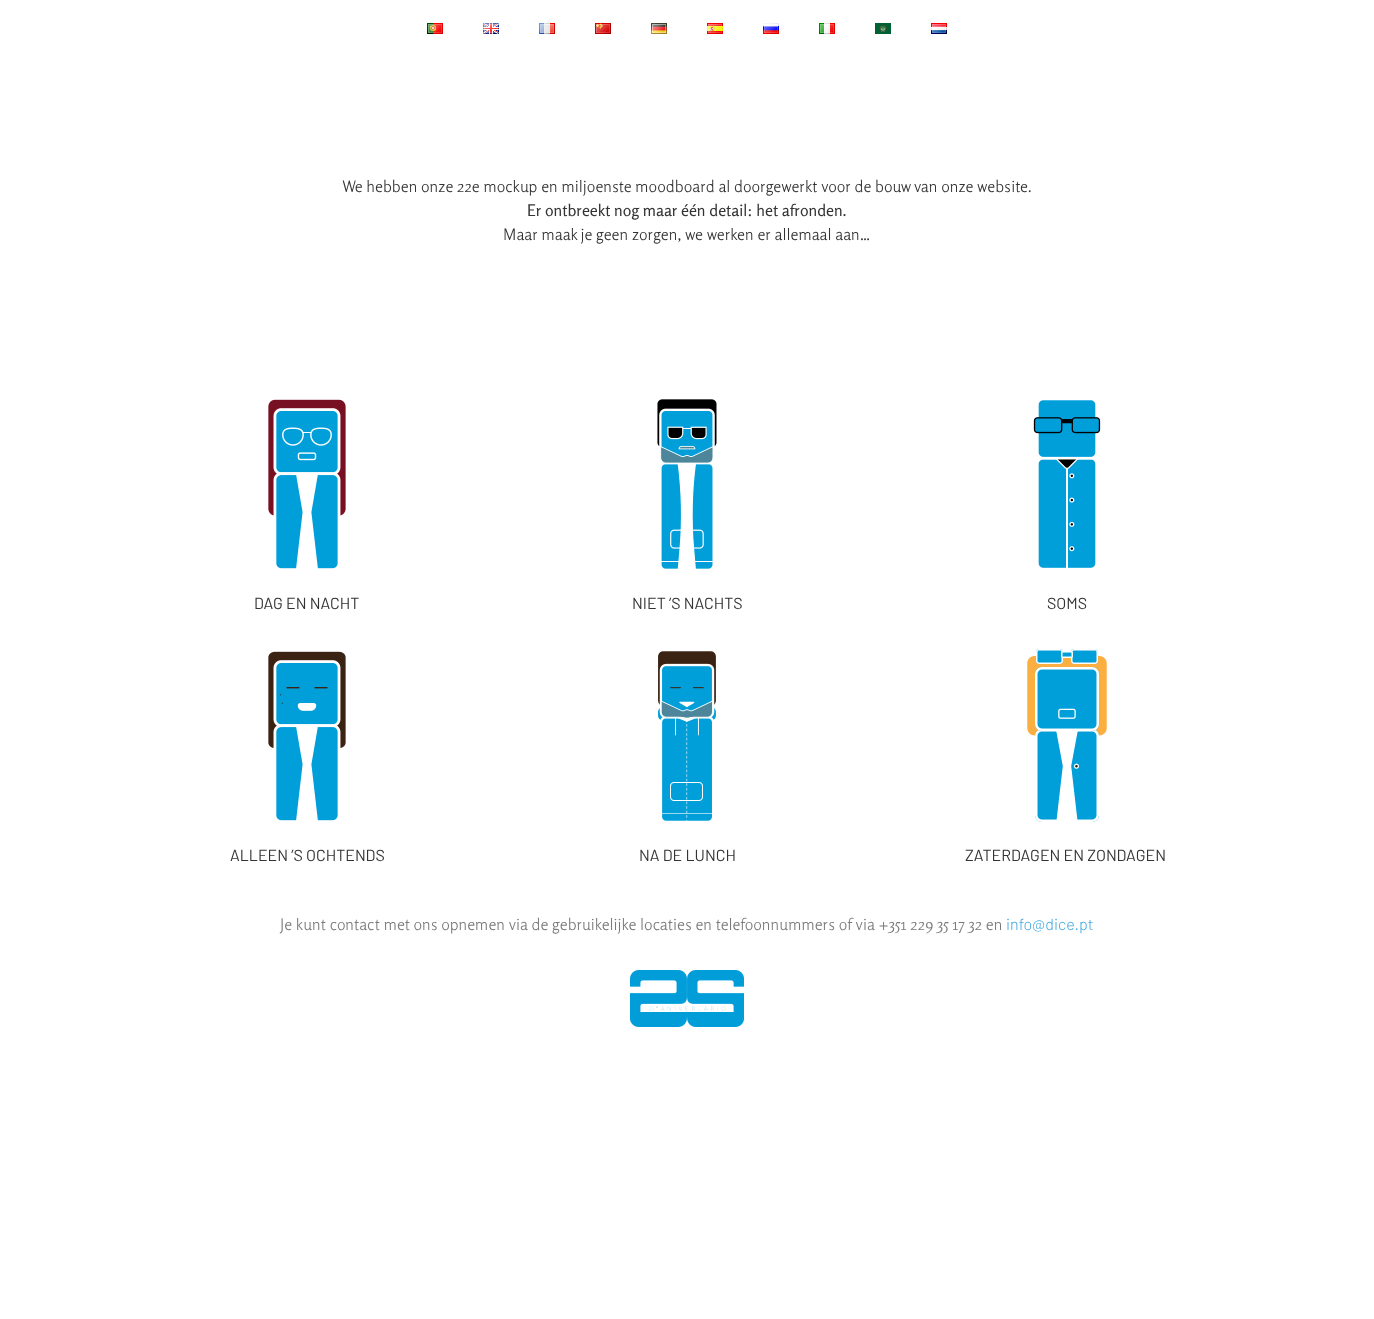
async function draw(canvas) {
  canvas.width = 1374
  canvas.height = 1319
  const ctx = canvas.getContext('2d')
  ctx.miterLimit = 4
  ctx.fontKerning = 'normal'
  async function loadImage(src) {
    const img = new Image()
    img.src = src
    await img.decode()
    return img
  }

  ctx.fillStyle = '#fff'
  ctx.fillRect(0, 0, 1374, 1319)
  ctx.drawImage(await loadImage('image0.png'), 427, 23, 16, 11)
  ctx.drawImage(await loadImage('image1.png'), 483, 23, 16, 11)
  ctx.drawImage(await loadImage('image2.png'), 539, 23, 16, 11)
  ctx.drawImage(await loadImage('image3.png'), 595, 23, 16, 11)
  ctx.drawImage(await loadImage('image4.png'), 651, 23, 16, 11)
  ctx.drawImage(await loadImage('image5.png'), 707, 23, 16, 11)
  ctx.drawImage(await loadImage('image6.png'), 763, 23, 16, 11)
  ctx.drawImage(await loadImage('image7.png'), 819, 23, 16, 11)
  ctx.drawImage(await loadImage('image8.png'), 875, 23, 16, 11)
  ctx.drawImage(await loadImage('image9.png'), 931, 23, 16, 11)
  ctx.font = '300 16px Rosario'
  ctx.fillStyle = '#333'
  ctx.fillText('We hebben onze 22e mockup en miljoenste moodboard al doorgewerkt voor de bouw van onze website.', 342, 192)
  ctx.font = '16px Rosario'
  ctx.fillText('Er ontbreekt nog maar één detail: het afronden.', 527, 216)
  ctx.font = '300 16px Rosario'
  ctx.fillText('Maar maak je geen zorgen, we werken er allemaal aan…', 503, 240)
  ctx.drawImage(await loadImage('image10.png'), 268, 399, 78, 170)
  ctx.font = '16px Barlow'
  ctx.fillText('DAG EN NACHT', 254, 609)
  ctx.drawImage(await loadImage('image11.png'), 657, 399, 60, 170)
  ctx.fillText('NIET ’S NACHTS', 632, 609)
  ctx.drawImage(await loadImage('image12.png'), 1033, 400, 68, 168)
  ctx.fillText('SOMS', 1047, 609)
  ctx.drawImage(await loadImage('image13.png'), 268, 651, 78, 170)
  ctx.fillText('ALLEEN ’S OCHTENDS', 230, 861)
  ctx.drawImage(await loadImage('image14.png'), 658, 651, 58, 170)
  ctx.fillText('NA DE LUNCH', 639, 861)
  ctx.drawImage(await loadImage('image15.png'), 1026, 649, 82, 173)
  ctx.fillText('ZATERDAGEN EN ZONDAGEN', 965, 861)
  ctx.font = '300 16px Rosario'
  ctx.fillStyle = '#7a7a7a'
  ctx.fillText('Je kunt contact met ons opnemen via de gebruikelijke locaties en telefoonnummers of via +351 229 35 17 32 en', 280, 930)
  ctx.font = '300 16px Barlow'
  ctx.fillStyle = '#40a8e0'
  ctx.fillText('info@dice.pt', 1006, 930)
  ctx.drawImage(await loadImage('image16.png'), 630, 970, 114, 57)
}

draw(document.querySelector('canvas'))
